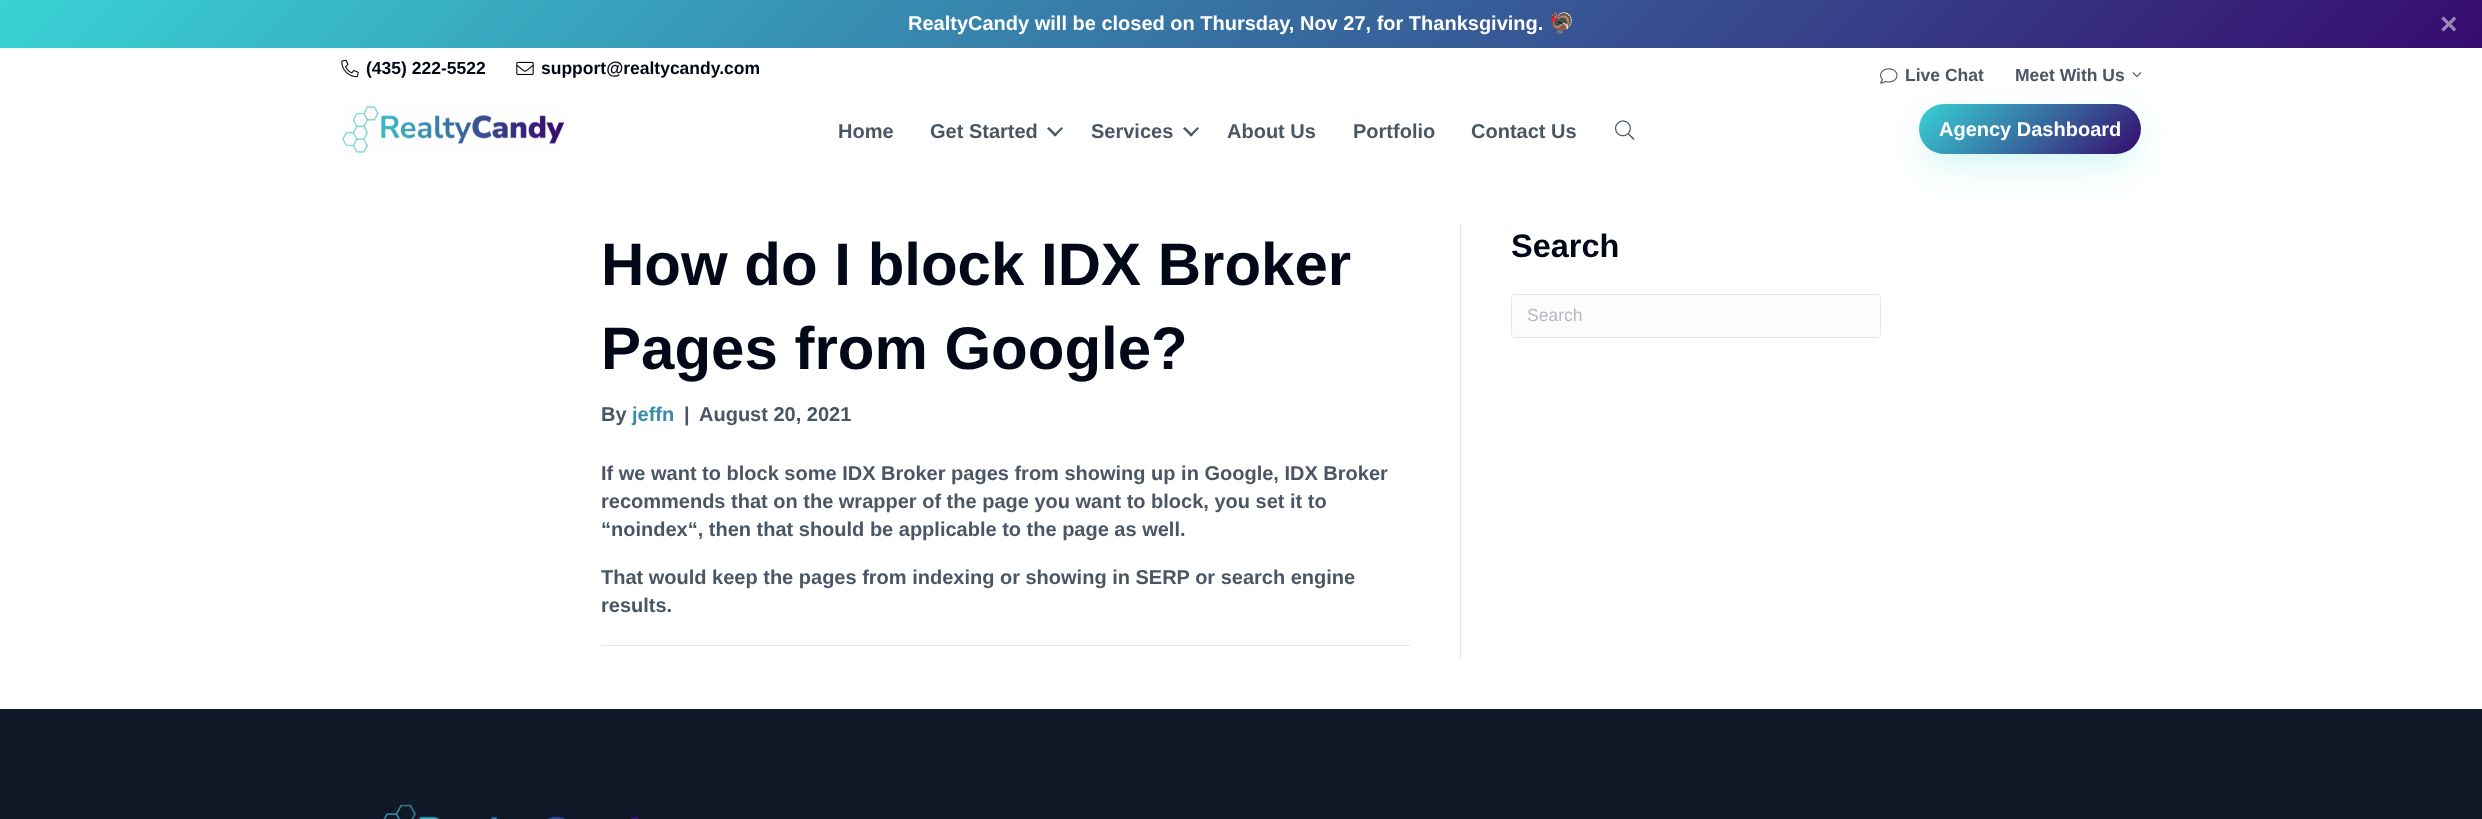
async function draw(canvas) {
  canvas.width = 2482
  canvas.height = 819
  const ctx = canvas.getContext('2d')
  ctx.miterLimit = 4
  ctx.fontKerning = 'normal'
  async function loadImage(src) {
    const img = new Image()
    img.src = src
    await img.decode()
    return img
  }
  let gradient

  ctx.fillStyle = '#fff'
  ctx.fillRect(0, 0, 2482, 819)
  gradient = ctx.createLinearGradient(609, -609, 1874, 656)
  gradient.addColorStop(0, '#38d3d5')
  gradient.addColorStop(1, '#360b6e')
  ctx.fillStyle = gradient
  ctx.fillRect(0, 0, 2482, 48)
  ctx.font = 'bold 20px Liberation Sans'
  ctx.fillStyle = '#fff'
  ctx.fillText('RealtyCandy will be closed on Thursday, Nov 27, for Thanksgiving.', 908, 30)
  ctx.font = 'bold 20px Noto Color Emoji'
  ctx.fillText('🦃', 1549, 30)
  ctx.font = 'bold 30px Liberation Sans'
  ctx.fillStyle = '#9b87b8'
  ctx.fillText('×', 2440, 34)
  ctx.drawImage(await loadImage('image0.png'), 341, 59, 18, 19)
  ctx.font = 'bold 17.5px Liberation Sans'
  ctx.fillStyle = '#020817'
  ctx.fillText('(435) 222-5522', 366, 74)
  ctx.drawImage(await loadImage('image1.png'), 516, 61, 18, 14)
  ctx.fillText('support@realtycandy.com', 541, 74)
  ctx.fillStyle = '#38d3d54d'
  ctx.filter = 'blur(19px)'
  ctx.beginPath()
  ctx.roundRect(1925, 123, 210, 37, 18.5)
  ctx.fill()
  ctx.filter = 'none'
  ctx.drawImage(await loadImage('image2.png'), 1880, 68, 18, 16)
  ctx.fillStyle = '#4b5563'
  ctx.fillText('Live Chat', 1905, 81)
  ctx.fillText('Meet With Us', 2015, 81)
  ctx.drawImage(await loadImage('image3.png'), 2132, 72, 10, 6)
  ctx.drawImage(await loadImage('image4.png'), 342, 106, 223, 47)
  ctx.font = 'bold 20px Liberation Sans'
  ctx.fillText('Home', 838, 138)
  ctx.fillText('Get Started', 930, 138)
  ctx.beginPath()
  ctx.moveTo(1061.5, 127)
  ctx.lineTo(1063, 128.5)
  ctx.lineTo(1055, 136.5)
  ctx.lineTo(1053.5, 135)
  ctx.closePath()
  ctx.fill()
  ctx.beginPath()
  ctx.moveTo(1049, 127)
  ctx.lineTo(1057, 135)
  ctx.lineTo(1055, 136.5)
  ctx.lineTo(1047, 128.5)
  ctx.closePath()
  ctx.fill()
  ctx.fillText('Services', 1091, 138)
  ctx.beginPath()
  ctx.moveTo(1197.5, 127)
  ctx.lineTo(1199, 128.5)
  ctx.lineTo(1191, 136.5)
  ctx.lineTo(1189.5, 135)
  ctx.closePath()
  ctx.fill()
  ctx.beginPath()
  ctx.moveTo(1185, 127)
  ctx.lineTo(1193, 135)
  ctx.lineTo(1191, 136.5)
  ctx.lineTo(1183, 128.5)
  ctx.closePath()
  ctx.fill()
  ctx.fillText('About Us', 1227, 138)
  ctx.fillText('Portfolio', 1353, 138)
  ctx.fillText('Contact Us', 1471, 138)
  ctx.drawImage(await loadImage('image5.png'), 1615, 120, 20, 20)
  gradient = ctx.createLinearGradient(1962, 61, 2098, 197)
  gradient.addColorStop(0, '#38d3d5')
  gradient.addColorStop(1, '#360b6e')
  ctx.fillStyle = gradient
  ctx.beginPath()
  ctx.roundRect(1919, 104, 222, 50, 25)
  ctx.fill()
  ctx.fillStyle = '#fff'
  ctx.fillText('Agency Dashboard', 1939, 136)
  ctx.fillStyle = '#e6e6e6'
  ctx.fillRect(1460, 223, 1, 436)
  ctx.font = 'bold 60px Liberation Sans'
  ctx.fillStyle = '#020817'
  ctx.fillText('How do I block IDX Broker', 601, 285)
  ctx.fillText('Pages from Google?', 601, 369)
  ctx.font = 'bold 20px Liberation Sans'
  ctx.fillStyle = '#4b5563'
  ctx.fillText('By', 601, 421)
  ctx.fillStyle = '#398aad'
  ctx.fillText('jeffn', 632, 421)
  ctx.fillStyle = '#4b5563'
  ctx.fillText('|', 684, 421)
  ctx.fillText('August 20, 2021', 699, 421)
  ctx.fillText('If we want to block some IDX Broker pages from showing up in Google, IDX Broker', 601, 480)
  ctx.fillText('recommends that on the wrapper of the page you want to block, you set it to', 601, 508)
  ctx.fillText('“noindex“, then that should be applicable to the page as well.', 601, 536)
  ctx.fillText('That would keep the pages from indexing or showing in SERP or search engine', 601, 584)
  ctx.fillText('results.', 601, 612)
  ctx.fillStyle = '#e6e6e6'
  ctx.fillRect(601, 645, 809, 1)
  ctx.font = 'bold 32.5px Liberation Sans'
  ctx.fillStyle = '#020817'
  ctx.fillText('Search', 1511, 257)
  ctx.fillStyle = '#fcfcfc'
  ctx.beginPath()
  ctx.roundRect(1513, 295, 367, 41, 4)
  ctx.fill()
  ctx.beginPath()
  ctx.roundRect(1511.5, 294.5, 369, 43, 4.5)
  ctx.strokeStyle = '#e6e6e6'
  ctx.stroke()
  ctx.font = '17.5px Liberation Sans'
  ctx.fillStyle = '#b5b9bf'
  ctx.fillText('Search', 1527, 321)
  ctx.fillStyle = '#111827'
  ctx.fillRect(0, 709, 2482, 110)
  ctx.drawImage(await loadImage('image6.png'), 383, 804, 256, 15)
}

draw(document.querySelector('canvas'))
